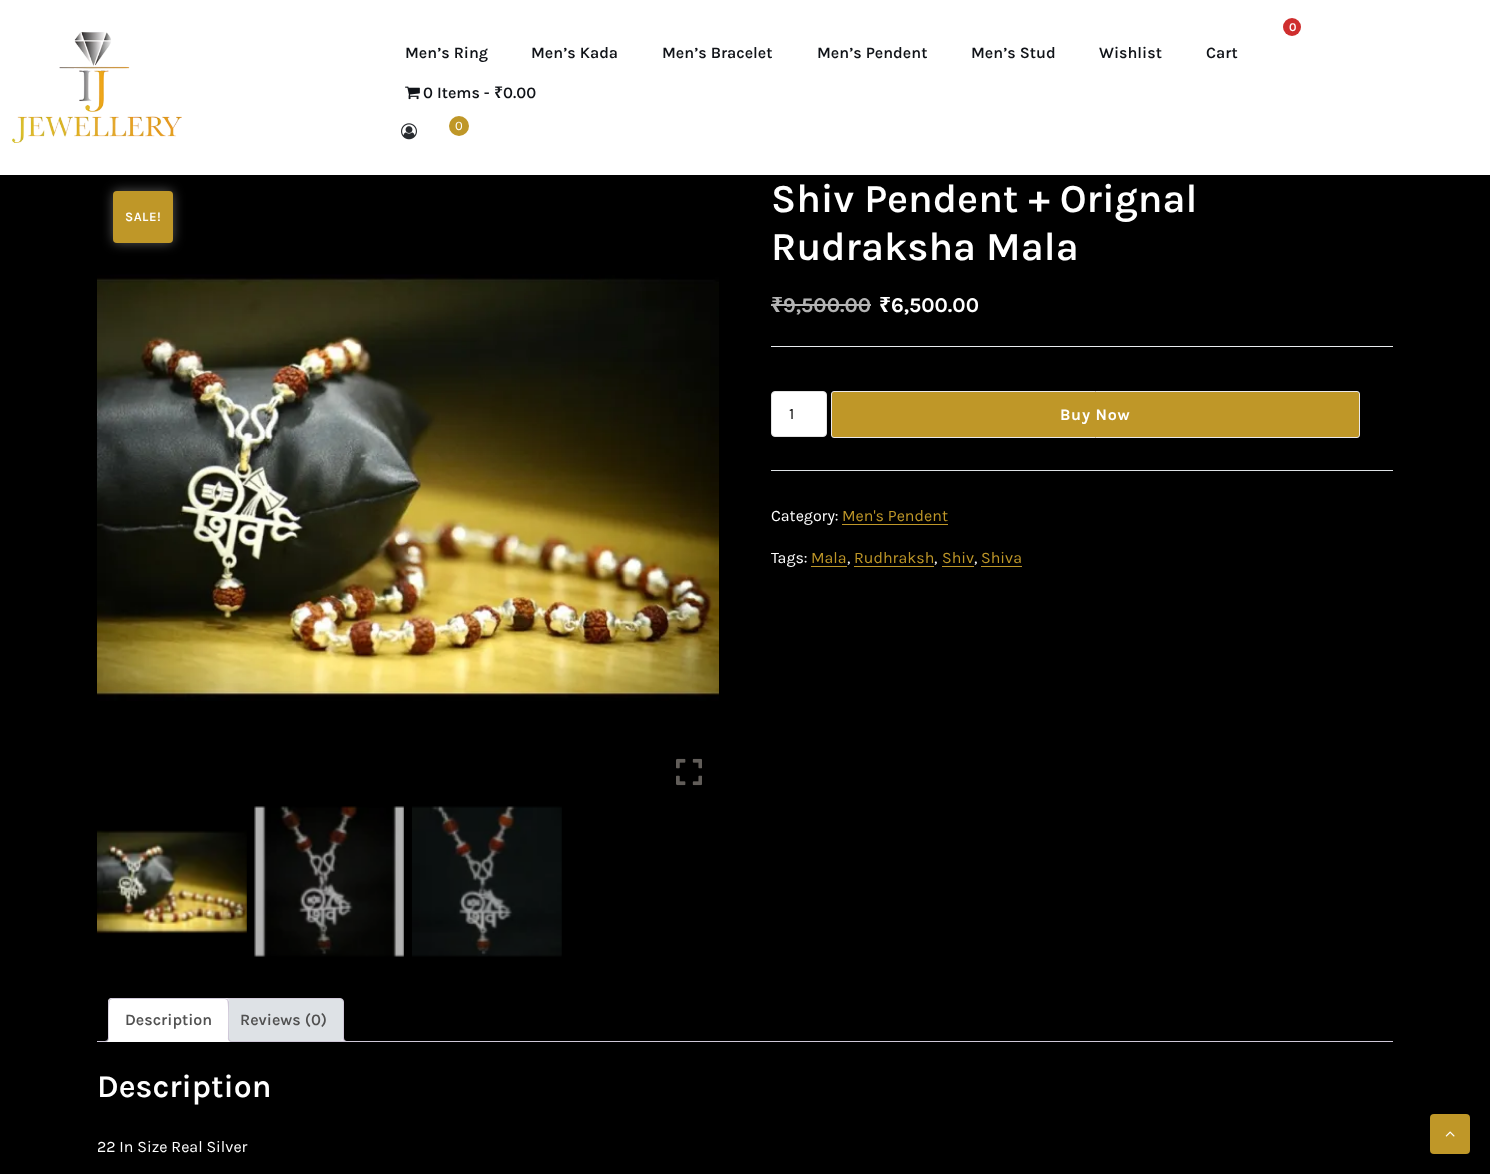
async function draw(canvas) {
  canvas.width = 1490
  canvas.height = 1174
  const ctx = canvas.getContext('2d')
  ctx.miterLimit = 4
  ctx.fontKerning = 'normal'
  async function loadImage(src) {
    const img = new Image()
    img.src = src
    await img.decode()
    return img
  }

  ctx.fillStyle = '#000'
  ctx.fillRect(0, 0, 1490, 1174)
  ctx.fillStyle = '#fff'
  ctx.fillRect(0, 0, 1490, 175)
  ctx.drawImage(await loadImage('image0.png'), 12, 32, 170, 111)
  ctx.fillStyle = '#cf2e2e'
  ctx.beginPath()
  ctx.arc(1292, 27, 9, 0, 2 * Math.PI)
  ctx.fill()
  ctx.font = '600 12px Karla'
  ctx.fillStyle = '#fff'
  ctx.fillText('0', 1289, 31)
  ctx.font = '600 16px Karla'
  ctx.fillStyle = '#101318'
  ctx.fillText('Men’s Ring', 405, 58)
  ctx.fillText('Men’s Kada', 531, 58)
  ctx.fillText('Men’s Bracelet', 662, 58)
  ctx.fillText('Men’s Pendent', 817, 58)
  ctx.fillText('Men’s Stud', 971, 58)
  ctx.fillText('Wishlist', 1099, 58)
  ctx.fillText('Cart', 1206, 58)
  ctx.drawImage(await loadImage('image1.png'), 405, 86, 15, 14)
  ctx.fillText('0 Items -', 423, 98)
  ctx.font = '600 16px Noto Sans'
  ctx.fillText('₹', 494, 98)
  ctx.font = '600 16px Karla'
  ctx.fillText('0.00', 503, 98)
  ctx.drawImage(await loadImage('image2.png'), 401, 123, 16, 17)
  ctx.fillStyle = '#bf9728'
  ctx.beginPath()
  ctx.arc(459, 126, 10, 0, 2 * Math.PI)
  ctx.fill()
  ctx.font = '13px Karla'
  ctx.fillStyle = '#fff'
  ctx.fillText('0', 455, 130)
  ctx.fillStyle = '#ffffff59'
  ctx.filter = 'blur(6px)'
  ctx.beginPath()
  ctx.roundRect(113, 191, 60, 52, 4)
  ctx.fill()
  ctx.filter = 'none'
  ctx.fillStyle = '#bf9728'
  ctx.beginPath()
  ctx.roundRect(113, 191, 60, 52, 4)
  ctx.fill()
  ctx.letterSpacing = '0.5px'
  ctx.font = '600 13px Karla'
  ctx.fillStyle = '#fff'
  ctx.fillText('SALE!', 125, 221)
  ctx.letterSpacing = '0px'
  ctx.font = '600 40px Karla'
  ctx.fillText('Shiv Pendent + Orignal', 771, 212)
  ctx.fillText('Rudraksha Mala', 771, 260)
  ctx.fillStyle = '#e9ecef'
  ctx.fillRect(771, 346, 622, 1)
  ctx.font = 'bold 21px Noto Sans'
  ctx.fillStyle = '#b3b3b3'
  ctx.fillText('₹', 771, 312)
  ctx.fillRect(771, 304, 12, 2)
  ctx.fillRect(783, 304, 88, 2)
  ctx.font = 'bold 21px Karla'
  ctx.fillText('9,500.00', 783, 312)
  ctx.font = 'bold 21px Noto Sans'
  ctx.fillStyle = '#fff'
  ctx.fillText('₹', 879, 312)
  ctx.font = 'bold 21px Karla'
  ctx.fillText('6,500.00', 891, 312)
  ctx.beginPath()
  ctx.roundRect(771.5, 391.5, 55, 45, 3.5)
  ctx.fill()
  ctx.strokeStyle = '#e1e1e1'
  ctx.stroke()
  ctx.letterSpacing = '0.5px'
  ctx.font = '16px Karla'
  ctx.fillStyle = '#000'
  ctx.fillText('1', 789, 419)
  ctx.fillStyle = '#bf9728'
  ctx.beginPath()
  ctx.roundRect(831.5, 391.5, 528, 46, 2.5)
  ctx.fill()
  ctx.strokeStyle = '#ebe9eb'
  ctx.stroke()
  ctx.letterSpacing = '0.75px'
  ctx.font = 'bold 16px Karla'
  ctx.fillStyle = '#fff'
  ctx.fillText('Buy Now', 1060, 420)
  ctx.fillStyle = '#dee2e6'
  ctx.fillRect(771, 470, 622, 1)
  ctx.letterSpacing = '0px'
  ctx.font = '16px Karla'
  ctx.fillStyle = '#fff'
  ctx.fillText('Category:', 771, 521)
  ctx.fillStyle = '#bf9728'
  ctx.fillText('Men\'s Pendent', 842, 521)
  ctx.fillRect(842, 524, 106, 1)
  ctx.fillStyle = '#fff'
  ctx.fillText('Tags:', 771, 563)
  ctx.fillStyle = '#bf9728'
  ctx.fillText('Mala', 811, 563)
  ctx.fillRect(811, 566, 36, 1)
  ctx.fillStyle = '#fff'
  ctx.fillText(',', 847, 563)
  ctx.fillStyle = '#bf9728'
  ctx.fillText('Rudhraksh', 854, 563)
  ctx.fillRect(854, 566, 80, 1)
  ctx.fillStyle = '#fff'
  ctx.fillText(',', 934, 563)
  ctx.fillStyle = '#bf9728'
  ctx.fillText('Shiv', 942, 563)
  ctx.fillRect(942, 566, 32, 1)
  ctx.fillStyle = '#fff'
  ctx.fillText(',', 974, 563)
  ctx.fillStyle = '#bf9728'
  ctx.fillText('Shiva', 981, 563)
  ctx.fillRect(981, 566, 41, 1)
  ctx.drawImage(await loadImage('image3.png'), 97, 274, 622, 427)
  ctx.drawImage(await loadImage('image4.png'), 676, 758, 26, 28)
  ctx.drawImage(await loadImage('image5.png'), 97, 830, 150, 104)
  ctx.drawImage(await loadImage('image6.png'), 254, 806, 150, 151)
  ctx.drawImage(await loadImage('image7.png'), 412, 806, 150, 151)
  ctx.fillStyle = '#dee2e6'
  ctx.beginPath()
  ctx.roundRect(223.5, 998.5, 120, 43, [3.5, 3.5, 0, 0])
  ctx.fill()
  ctx.strokeStyle = '#cfc8d8'
  ctx.stroke()
  ctx.save()
  ctx.beginPath()
  ctx.rect(97, 998, 1296, 44)
  ctx.clip()
  ctx.fillStyle = '#e9e6ed'
  ctx.beginPath()
  ctx.moveTo(341, 1039)
  ctx.bezierCurveTo(341, 1042.5, 342.5, 1044, 346, 1044)
  ctx.lineTo(346, 1042)
  ctx.bezierCurveTo(344.5, 1041.5, 343.5, 1040.5, 343, 1039)
  ctx.closePath()
  ctx.fill()
  ctx.restore()
  ctx.fillStyle = '#cfc8d8'
  ctx.beginPath()
  ctx.moveTo(343, 1037)
  ctx.lineTo(348, 1037)
  ctx.lineTo(348, 1042)
  ctx.bezierCurveTo(345.5, 1042, 343, 1041, 343, 1038)
  ctx.closePath()
  ctx.moveTo(344, 1037)
  ctx.lineTo(348, 1037)
  ctx.lineTo(348, 1041)
  ctx.bezierCurveTo(346, 1041, 344, 1040.5, 344, 1038)
  ctx.closePath()
  ctx.fill('evenodd')
  ctx.fillRect(97, 1041, 1296, 1)
  ctx.fillStyle = '#fff'
  ctx.beginPath()
  ctx.roundRect(108, 998, 121, 44, [4, 4, 0, 0])
  ctx.fill()
  ctx.fillStyle = '#cfc8d8'
  ctx.beginPath()
  ctx.moveTo(112, 998)
  ctx.lineTo(109, 999)
  ctx.lineTo(110, 1000)
  ctx.lineTo(112, 999)
  ctx.lineTo(225, 999)
  ctx.lineTo(227, 1000)
  ctx.lineTo(228, 999)
  ctx.lineTo(225, 998)
  ctx.closePath()
  ctx.fill()
  ctx.beginPath()
  ctx.moveTo(229, 1042)
  ctx.lineTo(229, 1002)
  ctx.bezierCurveTo(229, 1001, 228, 1000, 228, 999)
  ctx.lineTo(227, 1000)
  ctx.bezierCurveTo(229, 1002, 228, 1036, 228, 1041)
  ctx.closePath()
  ctx.fill()
  ctx.fillStyle = '#fff'
  ctx.beginPath()
  ctx.moveTo(229, 1042)
  ctx.lineTo(228, 1041)
  ctx.lineTo(109, 1041)
  ctx.lineTo(108, 1042)
  ctx.closePath()
  ctx.fill()
  ctx.fillStyle = '#cfc8d8'
  ctx.beginPath()
  ctx.moveTo(108, 1042)
  ctx.lineTo(109, 1041)
  ctx.bezierCurveTo(109, 1036, 108, 1002, 110, 1000)
  ctx.lineTo(109, 999)
  ctx.lineTo(108, 1002)
  ctx.closePath()
  ctx.fill()
  ctx.font = '600 16px Karla'
  ctx.fillStyle = '#515151'
  ctx.fillText('Description', 125, 1025)
  ctx.save()
  ctx.beginPath()
  ctx.rect(97, 998, 1296, 44)
  ctx.clip()
  ctx.fillStyle = '#fff'
  ctx.beginPath()
  ctx.moveTo(106, 1042)
  ctx.lineTo(106, 1044)
  ctx.bezierCurveTo(109.5, 1044, 111, 1042.5, 111, 1039)
  ctx.lineTo(109, 1039)
  ctx.bezierCurveTo(108.5, 1040.5, 107.5, 1041.5, 106, 1042)
  ctx.closePath()
  ctx.fill()
  ctx.restore()
  ctx.fillStyle = '#cfc8d8'
  ctx.beginPath()
  ctx.moveTo(104, 1037)
  ctx.lineTo(109, 1037)
  ctx.bezierCurveTo(109, 1040.5, 107.5, 1042, 104, 1042)
  ctx.closePath()
  ctx.moveTo(104, 1037)
  ctx.lineTo(108, 1037)
  ctx.bezierCurveTo(108, 1040, 107, 1041, 104, 1041)
  ctx.closePath()
  ctx.fill('evenodd')
  ctx.save()
  ctx.beginPath()
  ctx.rect(97, 998, 1296, 44)
  ctx.clip()
  ctx.fillStyle = '#fff'
  ctx.beginPath()
  ctx.moveTo(226, 1039)
  ctx.bezierCurveTo(226, 1042.5, 227.5, 1044, 231, 1044)
  ctx.lineTo(231, 1042)
  ctx.bezierCurveTo(229.5, 1041.5, 228.5, 1040.5, 228, 1039)
  ctx.closePath()
  ctx.fill()
  ctx.restore()
  ctx.beginPath()
  ctx.moveTo(228, 1037)
  ctx.lineTo(233, 1037)
  ctx.lineTo(233, 1042)
  ctx.bezierCurveTo(230.5, 1042, 228, 1041, 228, 1038)
  ctx.closePath()
  ctx.moveTo(229, 1037)
  ctx.lineTo(233, 1037)
  ctx.lineTo(233, 1041)
  ctx.bezierCurveTo(231, 1041, 229, 1040.5, 229, 1038)
  ctx.closePath()
  ctx.fill('evenodd')
  ctx.fillStyle = '#515151'
  ctx.fillText('Reviews (0)', 240, 1025)
  ctx.font = '600 32px Karla'
  ctx.fillStyle = '#fff'
  ctx.fillText('Description', 97, 1097)
  ctx.font = '16px Karla'
  ctx.fillText('22 In Size Real Silver', 97, 1152)
  ctx.fillStyle = '#bf9728'
  ctx.beginPath()
  ctx.roundRect(1430, 1114, 40, 40, 4)
  ctx.fill()
  ctx.drawImage(await loadImage('image8.png'), 1445, 1131, 10, 6)
}

draw(document.querySelector('canvas'))
